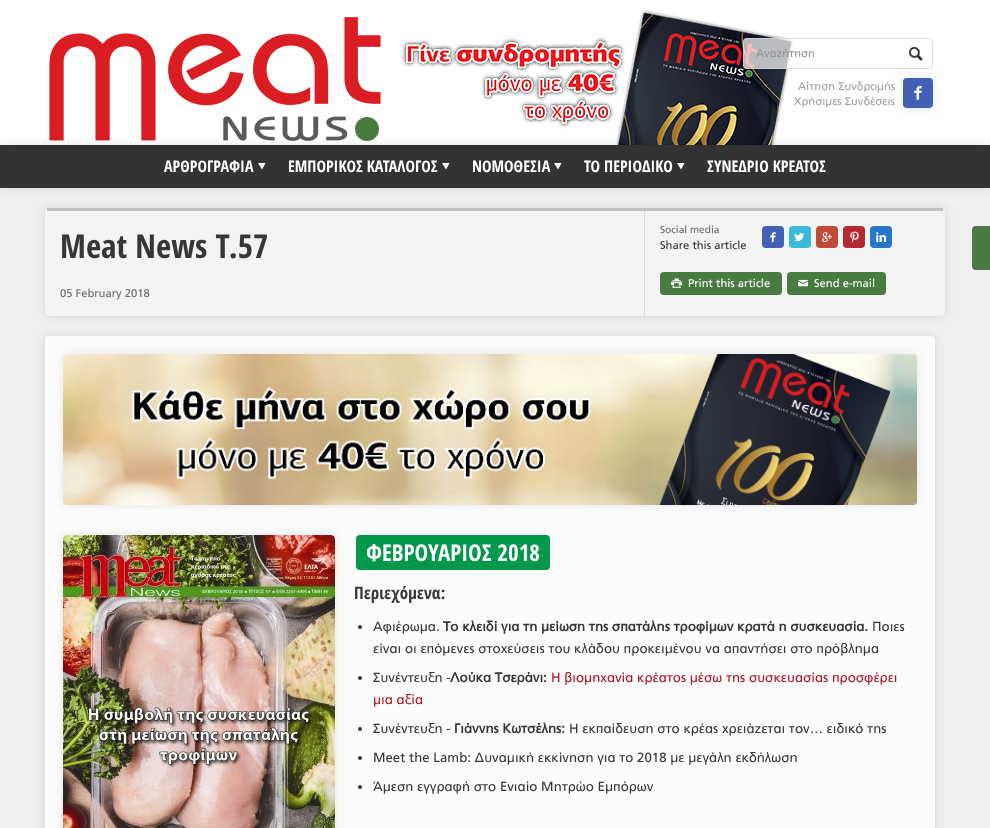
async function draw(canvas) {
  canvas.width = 990
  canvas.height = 828
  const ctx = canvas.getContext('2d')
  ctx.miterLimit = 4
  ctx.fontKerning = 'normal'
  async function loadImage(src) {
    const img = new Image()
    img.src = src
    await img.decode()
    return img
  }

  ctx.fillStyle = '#f0efef'
  ctx.fillRect(0, 0, 990, 828)
  ctx.fillStyle = '#fff'
  ctx.fillRect(0, 0, 990, 145)
  ctx.drawImage(await loadImage('image0.png'), 49, 17, 332, 124)
  ctx.drawImage(await loadImage('image1.png'), 402, 10, 392, 135)
  ctx.fillStyle = '#0000001a'
  ctx.filter = 'blur(5px)'
  ctx.beginPath()
  ctx.roundRect(903, 78, 30, 30, 4)
  ctx.fill()
  ctx.filter = 'none'
  ctx.fillStyle = '#ffffffb3'
  ctx.beginPath()
  ctx.roundRect(743, 38, 190, 31, 4)
  ctx.fill()
  ctx.beginPath()
  ctx.roundRect(743.5, 38.5, 189, 30, 3.5)
  ctx.strokeStyle = '#d3d3d3b3'
  ctx.stroke()
  ctx.font = '11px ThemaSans'
  ctx.fillStyle = '#939394'
  ctx.fillText('Αναζήτηση', 756, 57)
  ctx.drawImage(await loadImage('image2.png'), 909, 47, 14, 14)
  ctx.fillStyle = '#a0a0a0'
  ctx.fillText('Αίτηση Συνδρομής', 798, 90)
  ctx.fillStyle = '#4260b4'
  ctx.beginPath()
  ctx.roundRect(903, 78, 30, 30, 4)
  ctx.fill()
  ctx.drawImage(await loadImage('image3.png'), 914, 86, 8, 14)
  ctx.fillStyle = '#a0a0a0'
  ctx.fillText('Χρήσιμες Συνδέσεις', 794, 105)
  ctx.fillStyle = '#0000001a'
  ctx.filter = 'blur(5px)'
  ctx.beginPath()
  ctx.rect(0, 145, 990, 43)
  ctx.fill()
  ctx.filter = 'none'
  ctx.fillStyle = '#333'
  ctx.fillRect(0, 145, 990, 43)
  ctx.font = 'bold 16px Open Sans Condensed'
  ctx.fillStyle = '#fff'
  ctx.fillText('ΑΡΘΡΟΓΡΑΦΙΑ', 164, 172)
  ctx.beginPath()
  ctx.moveTo(265.5, 163)
  ctx.lineTo(262, 169.5)
  ctx.lineTo(258, 163)
  ctx.closePath()
  ctx.fill()
  ctx.fillText('ΕΜΠΟΡΙΚΟΣ ΚΑΤΑΛΟΓΟΣ', 288, 172)
  ctx.beginPath()
  ctx.moveTo(449.5, 163)
  ctx.lineTo(446, 169.5)
  ctx.lineTo(442, 163)
  ctx.closePath()
  ctx.fill()
  ctx.fillText('ΝΟΜΟΘΕΣΙΑ', 472, 172)
  ctx.beginPath()
  ctx.moveTo(561.5, 163)
  ctx.lineTo(558, 169.5)
  ctx.lineTo(554, 163)
  ctx.closePath()
  ctx.fill()
  ctx.fillText('ΤΟ ΠΕΡΙΟΔΙΚΟ', 584, 172)
  ctx.beginPath()
  ctx.moveTo(684.5, 163)
  ctx.lineTo(681, 169.5)
  ctx.lineTo(677, 163)
  ctx.closePath()
  ctx.fill()
  ctx.fillText('ΣΥΝΕΔΡΙΟ ΚΡΕΑΤΟΣ', 707, 172)
  ctx.fillStyle = '#0000001a'
  ctx.filter = 'blur(5px)'
  ctx.beginPath()
  ctx.roundRect(45, 208, 900, 108, 4)
  ctx.fill()
  ctx.filter = 'none'
  ctx.fillStyle = '#f3f3f3'
  ctx.beginPath()
  ctx.roundRect(45, 208, 900, 108, 4)
  ctx.fill()
  ctx.fillStyle = '#c1c1c1'
  ctx.fillRect(47, 208, 896, 3)
  ctx.font = 'bold 33px Open Sans Condensed'
  ctx.fillStyle = '#363635'
  ctx.fillText('Meat News T.57', 60, 258)
  ctx.fillStyle = '#477b40'
  ctx.beginPath()
  ctx.roundRect(972, 226, 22, 44, 4)
  ctx.fill()
  ctx.beginPath()
  ctx.moveTo(644.5, 211)
  ctx.lineTo(644.5, 316)
  ctx.strokeStyle = '#c1c1c1'
  ctx.setLineDash([1, 1])
  ctx.stroke()
  ctx.font = '10px ThemaSans'
  ctx.fillStyle = '#6b6b6b'
  ctx.fillText('Social media', 660, 233)
  ctx.font = '11px ThemaSans'
  ctx.fillStyle = '#363635'
  ctx.fillText('Share this article', 660, 249)
  ctx.fillStyle = '#4260b4'
  ctx.beginPath()
  ctx.roundRect(762, 226, 22, 22, 4)
  ctx.fill()
  ctx.drawImage(await loadImage('image4.png'), 770, 232, 6, 11)
  ctx.fillStyle = '#3fb9d7'
  ctx.beginPath()
  ctx.roundRect(789, 226, 22, 22, 4)
  ctx.fill()
  ctx.drawImage(await loadImage('image5.png'), 794, 233, 11, 9)
  ctx.fillStyle = '#bf4b37'
  ctx.beginPath()
  ctx.roundRect(816, 226, 22, 22, 4)
  ctx.fill()
  ctx.drawImage(await loadImage('image6.png'), 822, 232, 10, 10)
  ctx.fillStyle = '#b32a33'
  ctx.beginPath()
  ctx.roundRect(843, 226, 22, 22, 4)
  ctx.fill()
  ctx.drawImage(await loadImage('image7.png'), 850, 231, 9, 12)
  ctx.fillStyle = '#2876c6'
  ctx.beginPath()
  ctx.roundRect(870, 226, 22, 22, 4)
  ctx.fill()
  ctx.drawImage(await loadImage('image8.png'), 876, 232, 11, 10)
  ctx.fillStyle = '#477b40'
  ctx.beginPath()
  ctx.roundRect(660, 272, 122, 23, 4)
  ctx.fill()
  ctx.drawImage(await loadImage('image9.png'), 671, 278, 11, 10)
  ctx.fillStyle = '#fff'
  ctx.fillText('Print this article', 688, 287)
  ctx.fillStyle = '#477b40'
  ctx.beginPath()
  ctx.roundRect(787, 272, 99, 23, 4)
  ctx.fill()
  ctx.drawImage(await loadImage('image10.png'), 798, 279, 11, 8)
  ctx.fillStyle = '#fff'
  ctx.fillText('Send e-mail', 814, 287)
  ctx.fillStyle = '#6b6b6b'
  ctx.fillText('05 February 2018', 60, 297)
  ctx.fillStyle = '#0000001a'
  ctx.filter = 'blur(5px)'
  ctx.beginPath()
  ctx.roundRect(45, 336, 890, 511, 4)
  ctx.fill()
  ctx.filter = 'none'
  ctx.fillStyle = '#fcfcfc'
  ctx.beginPath()
  ctx.roundRect(45, 336, 890, 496, 4)
  ctx.fill()
  ctx.fillStyle = '#0000001a'
  ctx.filter = 'blur(5px)'
  ctx.beginPath()
  ctx.roundRect(63, 354, 854, 151, 4)
  ctx.fill()
  ctx.filter = 'none'
  ctx.drawImage(await loadImage('image11.png'), 63, 354, 854, 151)
  ctx.filter = 'blur(5px)'
  ctx.beginPath()
  ctx.roundRect(63, 535, 272, 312, 4)
  ctx.fill()
  ctx.filter = 'none'
  ctx.drawImage(await loadImage('image12.png'), 63, 535, 272, 293)
  ctx.fillStyle = '#00984b'
  ctx.beginPath()
  ctx.roundRect(356, 535, 194, 35, 4)
  ctx.fill()
  ctx.font = 'bold 23px Open Sans Condensed'
  ctx.fillStyle = '#fff'
  ctx.fillText('ΦΕΒΡΟΥΑΡΙΟΣ 2018', 366, 561)
  ctx.font = 'bold 17px Open Sans Condensed'
  ctx.fillStyle = '#363635'
  ctx.fillText('Περιεχόμενα:', 354, 599)
  ctx.beginPath()
  ctx.arc(360, 627, 2, 0, 2 * Math.PI)
  ctx.fill()
  ctx.font = '13px ThemaSans'
  ctx.fillText('Αφιέρωμα.', 373, 631)
  ctx.font = 'bold 13px ThemaSans'
  ctx.fillText('Το κλειδί για τη μείωση της σπατάλης τροφίμων κρατά η συσκευασία.', 443, 631)
  ctx.font = '13px ThemaSans'
  ctx.fillText('Ποιες', 872, 631)
  ctx.fillText('είναι οι επόμενες στοχεύσεις του κλάδου προκειμένου να απαντήσει στο πρόβλημα', 373, 653)
  ctx.beginPath()
  ctx.arc(360, 678, 2, 0, 2 * Math.PI)
  ctx.fill()
  ctx.fillText('Συνέντευξη -', 373, 682)
  ctx.font = 'bold 13px ThemaSans'
  ctx.fillText('Λούκα Τσεράνι:', 450, 682)
  ctx.font = '13px ThemaSans'
  ctx.fillStyle = '#b1121f'
  ctx.fillText('Η βιομηχανία κρέατος μέσω της συσκευασίας προσφέρει', 551, 682)
  ctx.fillText('μια αξία', 373, 704)
  ctx.fillStyle = '#363635'
  ctx.beginPath()
  ctx.arc(360, 729, 2, 0, 2 * Math.PI)
  ctx.fill()
  ctx.fillText('Συνέντευξη -', 373, 733)
  ctx.font = 'bold 13px ThemaSans'
  ctx.fillText('Γιάννης Κωτσέλης:', 454, 733)
  ctx.font = '13px ThemaSans'
  ctx.fillText('Η εκπαίδευση στο κρέας χρειάζεται τον… ειδικό της', 569, 733)
  ctx.beginPath()
  ctx.arc(360, 758, 2, 0, 2 * Math.PI)
  ctx.fill()
  ctx.fillText('Meet the Lamb: Δυναμική εκκίνηση για το 2018 με μεγάλη εκδήλωση', 373, 762)
  ctx.beginPath()
  ctx.arc(360, 787, 2, 0, 2 * Math.PI)
  ctx.fill()
  ctx.fillText('Άμεση εγγραφή στο Ενιαίο Μητρώο Εμπόρων', 373, 791)
}

draw(document.querySelector('canvas'))
